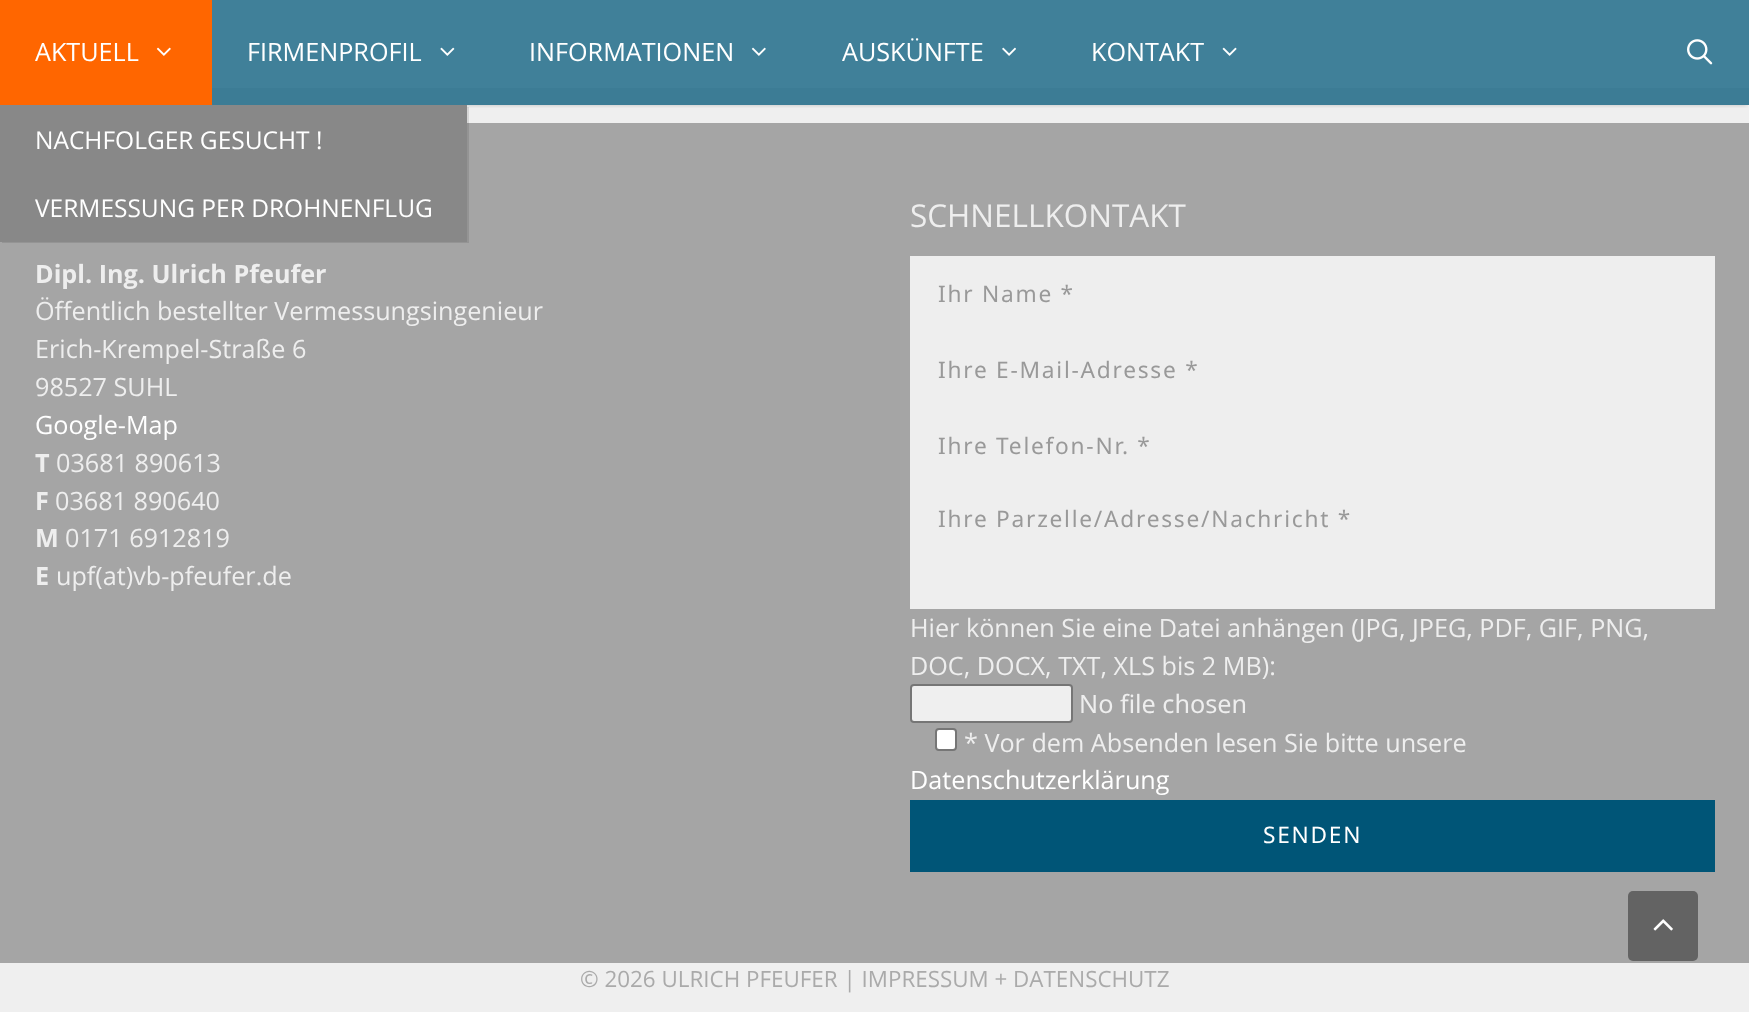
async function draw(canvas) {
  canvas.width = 1749
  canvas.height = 1012
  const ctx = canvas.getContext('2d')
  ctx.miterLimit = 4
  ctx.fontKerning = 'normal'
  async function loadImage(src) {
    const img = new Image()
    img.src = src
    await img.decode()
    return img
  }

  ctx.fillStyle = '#efefef'
  ctx.fillRect(0, 0, 1749, 1012)
  ctx.fillStyle = '#3c7c95'
  ctx.fillRect(212, 88, 1537, 17)
  ctx.fillStyle = '#408099'
  ctx.fillRect(212, 0, 1537, 88)
  ctx.save()
  ctx.beginPath()
  ctx.rect(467, 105, 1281, 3)
  ctx.clip()
  ctx.fillStyle = '#00000033'
  ctx.filter = 'blur(2px)'
  ctx.beginPath()
  ctx.rect(4, 7, 1743, 98)
  ctx.fill()
  ctx.filter = 'none'
  ctx.restore()
  ctx.fillStyle = '#f60'
  ctx.fillRect(0, 0, 212, 105)
  ctx.font = '25.2px Open Sans'
  ctx.fillStyle = '#fff'
  ctx.fillText('AKTUELL', 35, 61)
  ctx.drawImage(await loadImage('image0.png'), 156, 47, 15, 9)
  ctx.fillStyle = '#a5a5a5'
  ctx.fillRect(0, 123, 1749, 840)
  ctx.fillStyle = '#0000001a'
  ctx.beginPath()
  ctx.moveTo(2, 242)
  ctx.lineTo(2, 243)
  ctx.lineTo(469, 243)
  ctx.lineTo(469, 107)
  ctx.lineTo(467, 107)
  ctx.lineTo(467, 242)
  ctx.closePath()
  ctx.fill()
  ctx.fillStyle = '#888'
  ctx.fillRect(0, 105, 467, 137)
  ctx.font = '24.5px Open Sans'
  ctx.fillStyle = '#fff'
  ctx.fillText('NACHFOLGER GESUCHT !', 35, 149)
  ctx.fillText('VERMESSUNG PER DROHNENFLUG', 35, 217)
  ctx.font = '25.2px Open Sans'
  ctx.fillText('AUSKÜNFTE', 842, 61)
  ctx.drawImage(await loadImage('image1.png'), 1002, 47, 14, 9)
  ctx.drawImage(await loadImage('image2.png'), 1687, 39, 26, 26)
  ctx.fillText('FIRMENPROFIL', 247, 61)
  ctx.drawImage(await loadImage('image3.png'), 440, 47, 15, 9)
  ctx.fillText('INFORMATIONEN', 529, 61)
  ctx.drawImage(await loadImage('image4.png'), 751, 47, 15, 9)
  ctx.fillText('KONTAKT', 1091, 61)
  ctx.drawImage(await loadImage('image5.png'), 1222, 47, 15, 9)
  ctx.font = 'bold 25.2px Open Sans'
  ctx.fillStyle = '#eee'
  ctx.fillText('Dipl. Ing. Ulrich Pfeufer', 35, 283)
  ctx.font = '25.2px Open Sans'
  ctx.fillText('Öffentlich bestellter Vermessungsingenieur', 35, 320)
  ctx.fillText('Erich-Krempel-Straße 6', 35, 358)
  ctx.fillText('98527 SUHL', 35, 396)
  ctx.fillStyle = '#fff'
  ctx.fillText('Google-Map', 35, 434)
  ctx.font = 'bold 25.2px Open Sans'
  ctx.fillStyle = '#eee'
  ctx.fillText('T', 35, 472)
  ctx.font = '25.2px Open Sans'
  ctx.fillText('03681 890613', 56, 472)
  ctx.font = 'bold 25.2px Open Sans'
  ctx.fillText('F', 35, 510)
  ctx.font = '25.2px Open Sans'
  ctx.fillText('03681 890640', 55, 510)
  ctx.font = 'bold 25.2px Open Sans'
  ctx.fillText('M', 35, 547)
  ctx.font = '25.2px Open Sans'
  ctx.fillText('0171 6912819', 65, 547)
  ctx.font = 'bold 25.2px Open Sans'
  ctx.fillText('E', 35, 585)
  ctx.font = '25.2px Open Sans'
  ctx.fillText('upf(at)vb-pfeufer.de', 56, 585)
  ctx.font = '31.5px Open Sans'
  ctx.fillText('SCHNELLKONTAKT', 910, 227)
  ctx.fillRect(910, 256, 805, 353)
  ctx.letterSpacing = '1.75px'
  ctx.font = '22.7px Noto Sans'
  ctx.fillStyle = '#999'
  ctx.fillText('Ihr Name *', 938, 302)
  ctx.fillText('Ihre E-Mail-Adresse *', 938, 378)
  ctx.fillText('Ihre Telefon-Nr. *', 938, 454)
  ctx.fillText('Ihre Parzelle/Adresse/Nachricht *', 938, 527)
  ctx.letterSpacing = '0px'
  ctx.font = '25.2px Open Sans'
  ctx.fillStyle = '#eee'
  ctx.fillText('Hier können Sie eine Datei anhängen (JPG, JPEG, PDF, GIF, PNG,', 910, 637)
  ctx.fillText('DOC, DOCX, TXT, XLS bis 2 MB):', 910, 675)
  ctx.fillStyle = '#efefef'
  ctx.beginPath()
  ctx.roundRect(911, 685, 161, 37, 3)
  ctx.fill()
  ctx.strokeStyle = '#767676'
  ctx.lineWidth = 2
  ctx.stroke()
  ctx.font = '25.2px Noto Sans'
  ctx.fillStyle = '#eee'
  ctx.fillText('No file chosen', 1079, 713)
  ctx.fillStyle = '#fff'
  ctx.beginPath()
  ctx.roundRect(936, 729, 20, 21, 3)
  ctx.fill()
  ctx.stroke()
  ctx.font = '25.2px Open Sans'
  ctx.fillStyle = '#eee'
  ctx.fillText('* Vor dem Absenden lesen Sie bitte unsere', 964, 752)
  ctx.fillStyle = '#fff'
  ctx.fillText('Datenschutzerklärung', 910, 789)
  ctx.fillStyle = '#057'
  ctx.fillRect(910, 800, 805, 72)
  ctx.letterSpacing = '1.75px'
  ctx.font = '22.7px Noto Sans'
  ctx.fillStyle = '#fff'
  ctx.fillText('SENDEN', 1263, 843)
  ctx.letterSpacing = '0px'
  ctx.font = '22.4px Open Sans'
  ctx.fillStyle = '#aaa'
  ctx.fillText('© 2026 ULRICH PFEUFER | IMPRESSUM + DATENSCHUTZ', 580, 987)
  ctx.fillStyle = '#636363'
  ctx.beginPath()
  ctx.roundRect(1628, 891, 70, 70, 5)
  ctx.fill()
  ctx.drawImage(await loadImage('image6.png'), 1653, 919, 20, 12)
}

draw(document.querySelector('canvas'))
